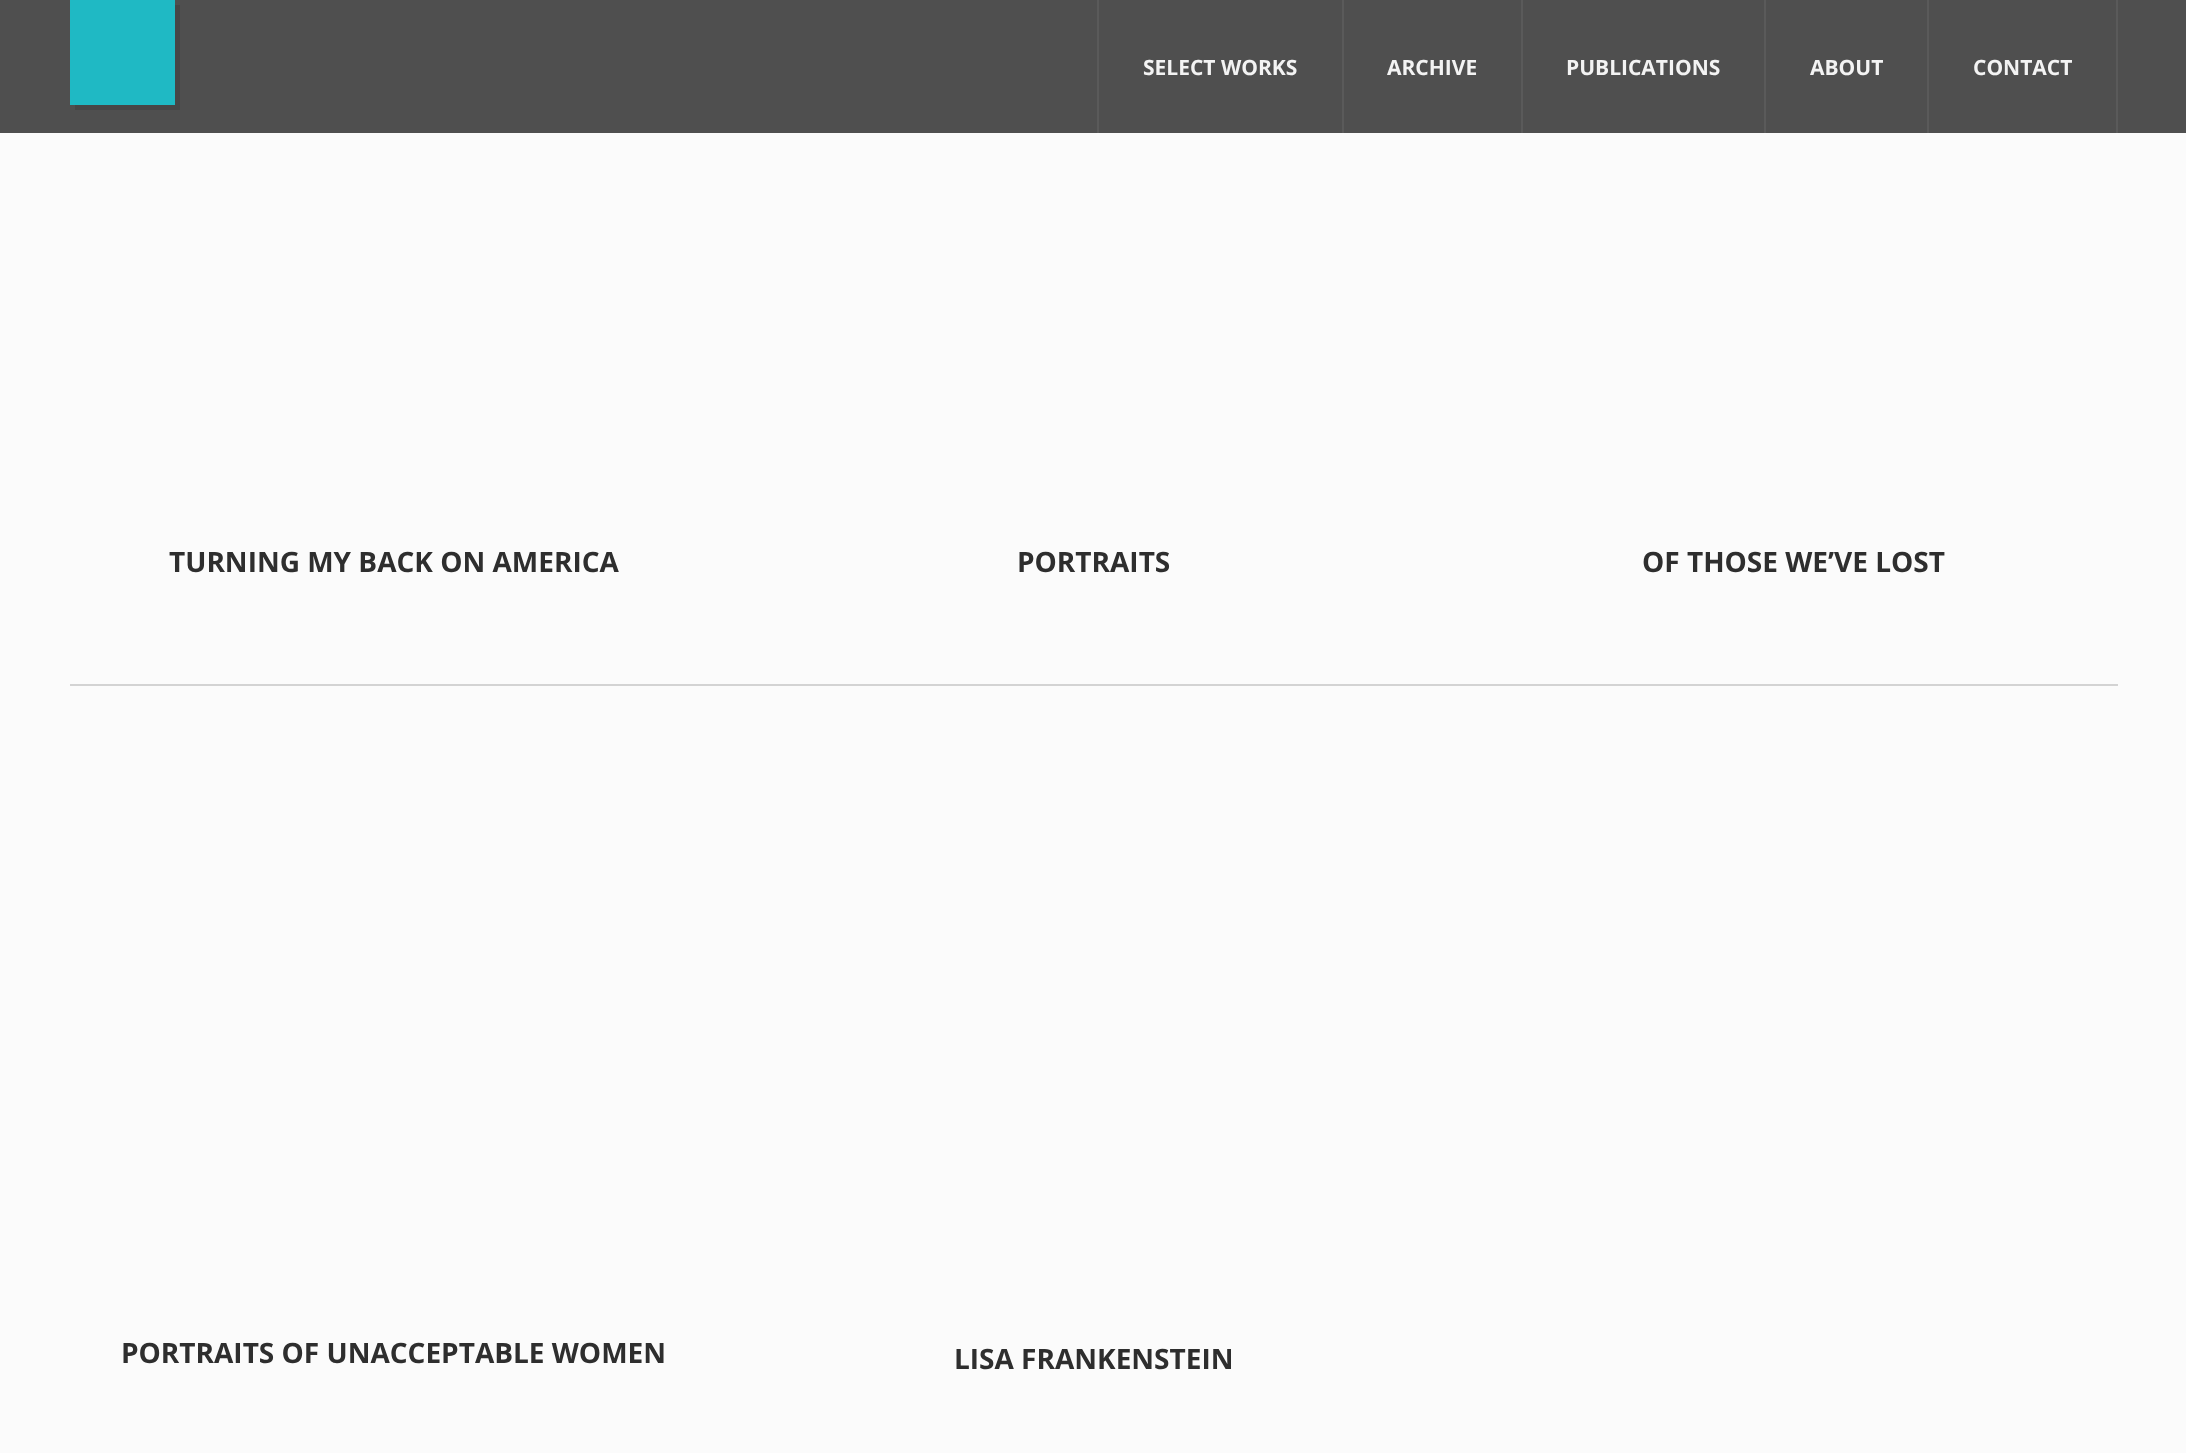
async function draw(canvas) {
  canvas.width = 2186
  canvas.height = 1453
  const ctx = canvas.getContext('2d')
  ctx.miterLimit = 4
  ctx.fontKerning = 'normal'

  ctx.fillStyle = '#fbfbfb'
  ctx.fillRect(0, 0, 2186, 1453)
  ctx.fillStyle = '#4f4f4f'
  ctx.fillRect(0, 0, 2186, 133)
  ctx.fillStyle = '#464646'
  ctx.beginPath()
  ctx.moveTo(75, 105)
  ctx.lineTo(75, 110)
  ctx.lineTo(180, 110)
  ctx.lineTo(180, 5)
  ctx.lineTo(175, 5)
  ctx.lineTo(175, 105)
  ctx.closePath()
  ctx.fill()
  ctx.fillStyle = '#1fb9c4'
  ctx.fillRect(70, 0, 105, 105)
  ctx.fillStyle = '#5a5a5a'
  ctx.fillRect(1342, 0, 2, 133)
  ctx.fillRect(1097, 0, 2, 133)
  ctx.font = 'bold 21px Open Sans'
  ctx.fillStyle = '#f3f3f3'
  ctx.fillText('SELECT WORKS', 1143, 75)
  ctx.fillStyle = '#5a5a5a'
  ctx.fillRect(1521, 0, 2, 133)
  ctx.fillStyle = '#f3f3f3'
  ctx.fillText('ARCHIVE', 1387, 75)
  ctx.fillStyle = '#5a5a5a'
  ctx.fillRect(1764, 0, 2, 133)
  ctx.fillStyle = '#f3f3f3'
  ctx.fillText('PUBLICATIONS', 1566, 75)
  ctx.fillStyle = '#5a5a5a'
  ctx.fillRect(1927, 0, 2, 133)
  ctx.fillStyle = '#f3f3f3'
  ctx.fillText('ABOUT', 1810, 75)
  ctx.fillStyle = '#5a5a5a'
  ctx.fillRect(2116, 0, 2, 133)
  ctx.fillStyle = '#f3f3f3'
  ctx.fillText('CONTACT', 1973, 75)
  ctx.font = 'bold 28px Open Sans'
  ctx.fillStyle = '#2e2e2e'
  ctx.fillText('TURNING MY BACK ON AMERICA', 169, 572)
  ctx.fillText('PORTRAITS', 1017, 572)
  ctx.fillText('OF THOSE WE’VE LOST', 1642, 572)
  ctx.fillStyle = '#d3d3d3'
  ctx.fillRect(70, 684, 2048, 2)
  ctx.fillStyle = '#2e2e2e'
  ctx.fillText('PORTRAITS OF UNACCEPTABLE WOMEN', 121, 1363)
  ctx.fillText('LISA FRANKENSTEIN', 954, 1369)
}

draw(document.querySelector('canvas'))
